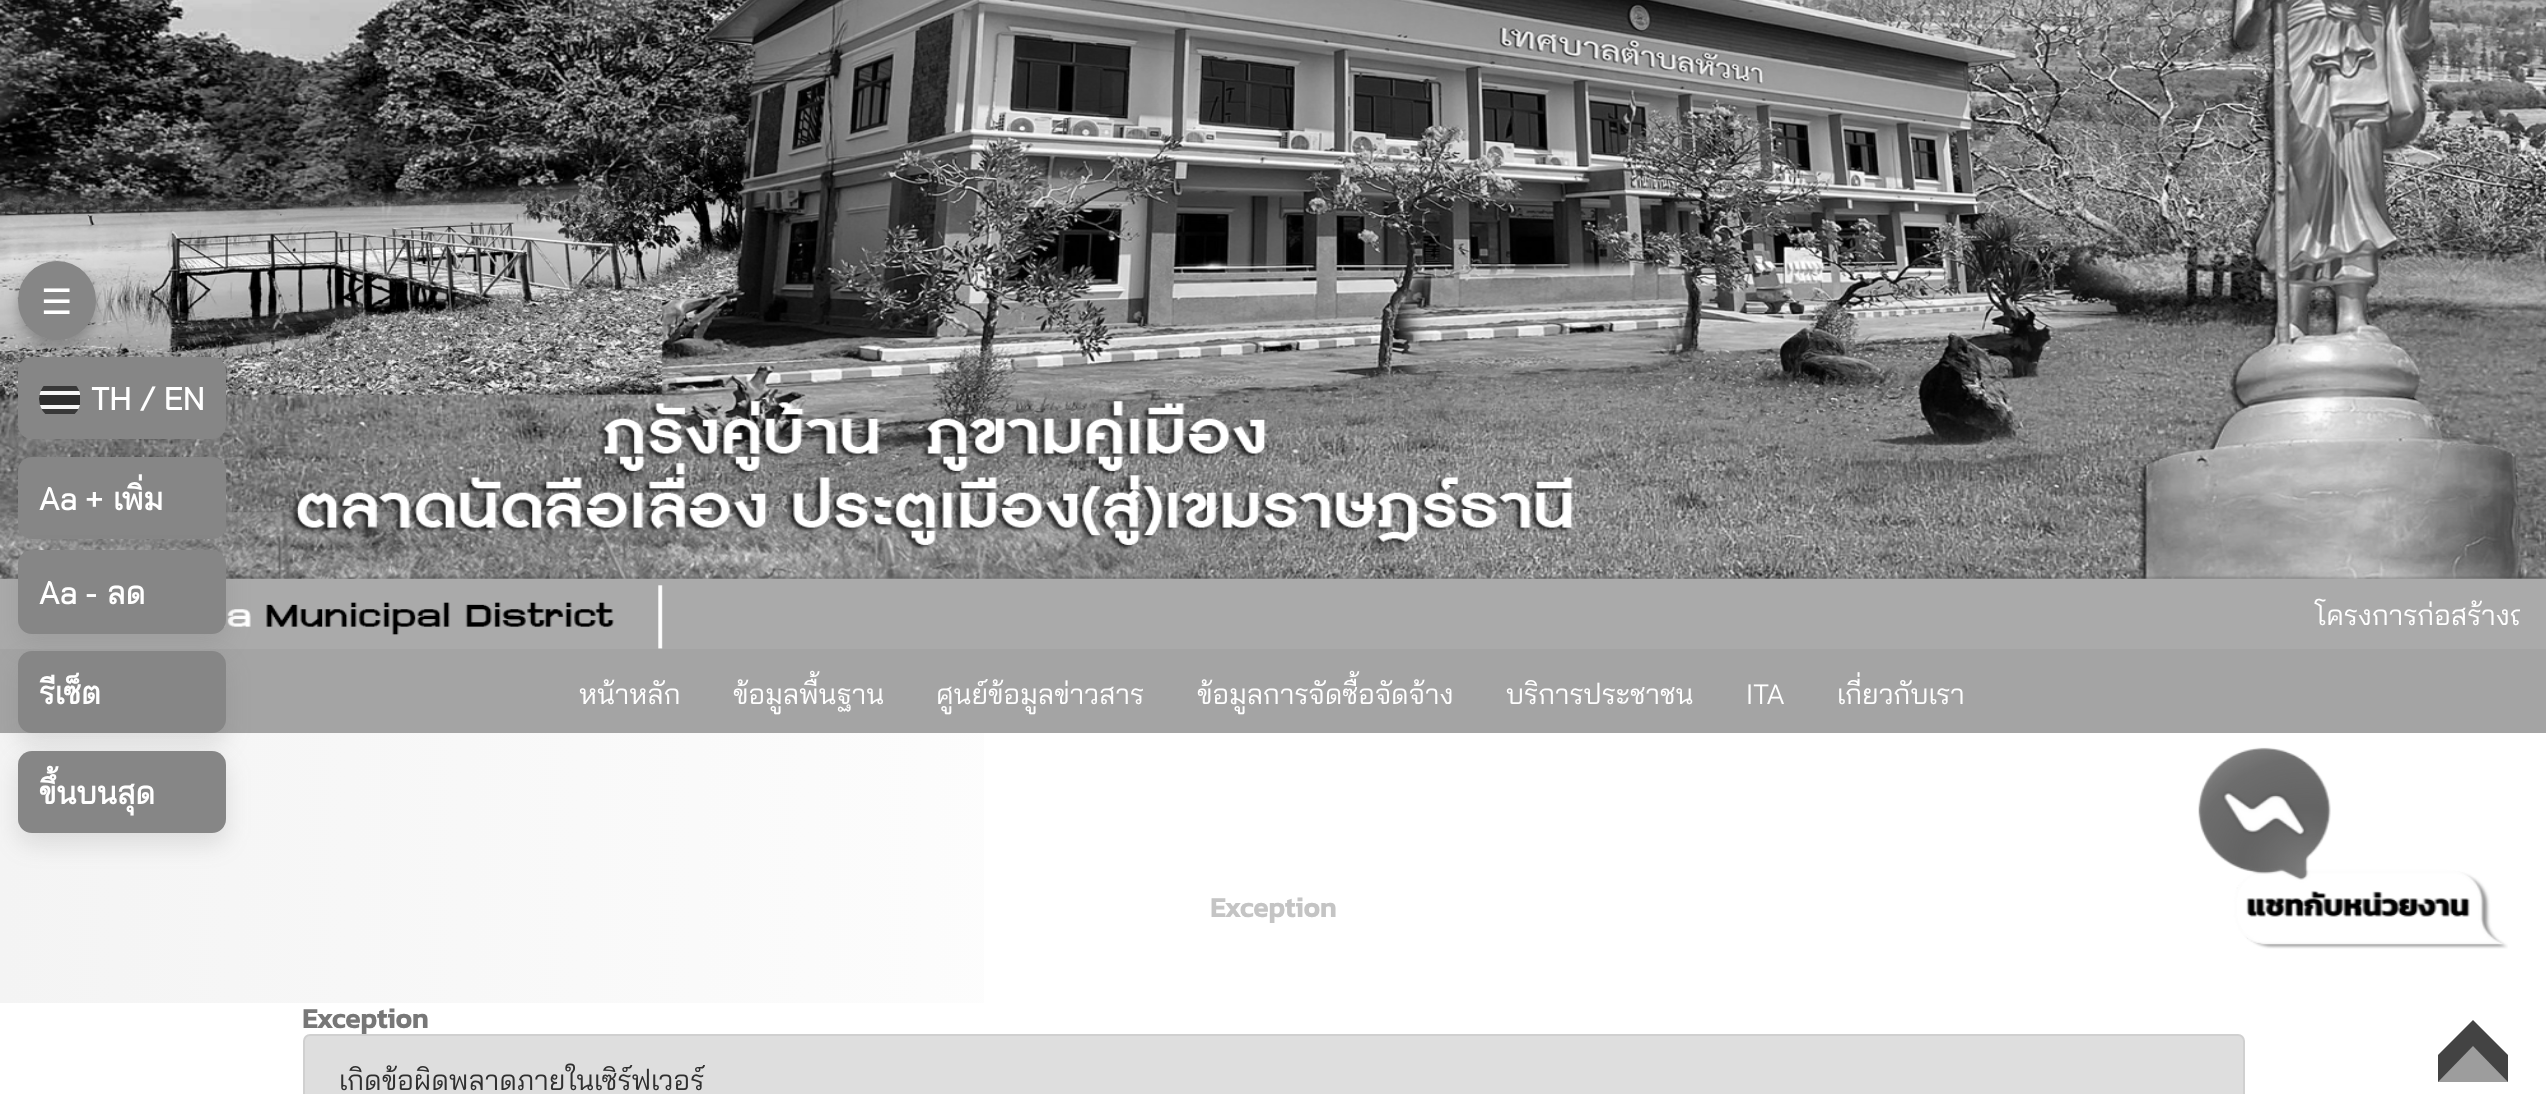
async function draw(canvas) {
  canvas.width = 2546
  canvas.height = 1094
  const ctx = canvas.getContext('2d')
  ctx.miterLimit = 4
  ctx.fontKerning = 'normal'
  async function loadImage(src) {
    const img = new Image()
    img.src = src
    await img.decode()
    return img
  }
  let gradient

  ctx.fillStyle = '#fff'
  ctx.fillRect(0, 0, 2546, 1094)
  ctx.drawImage(await loadImage('image0.png'), 0, 0, 2546, 649)
  ctx.fillStyle = '#00000040'
  ctx.filter = 'blur(7px)'
  ctx.beginPath()
  ctx.roundRect(18, 268, 78, 79, 39)
  ctx.fill()
  ctx.filter = 'none'
  ctx.fillStyle = '#868686'
  ctx.beginPath()
  ctx.roundRect(18, 261, 78, 79, 39)
  ctx.fill()
  ctx.font = '35px DejaVu Sans'
  ctx.fillStyle = '#fff'
  ctx.fillText('☰', 41, 314)
  ctx.fillStyle = '#6565652e'
  ctx.filter = 'blur(12px)'
  ctx.beginPath()
  ctx.roundRect(18, 368, 208, 82, 14)
  ctx.fill()
  ctx.filter = 'none'
  ctx.fillStyle = '#868686'
  ctx.beginPath()
  ctx.roundRect(18, 357, 208, 82, 14)
  ctx.fill()
  ctx.save()
  ctx.beginPath()
  ctx.roundRect(39, 378, 42, 42, 21)
  ctx.clip()
  ctx.fillStyle = '#383838'
  ctx.fillRect(39, 386, 41, 28)
  ctx.fillStyle = '#f5f5f5'
  ctx.fillRect(39, 391, 41, 18)
  ctx.fillStyle = '#2d2d2d'
  ctx.fillRect(39, 395, 41, 10)
  ctx.restore()
  ctx.font = 'bold 31.5px Bai Jamjuree'
  ctx.fillStyle = '#fff'
  ctx.fillText('TH / EN', 91, 410)
  ctx.fillStyle = '#6565652e'
  ctx.filter = 'blur(12px)'
  ctx.beginPath()
  ctx.roundRect(18, 467, 208, 83, 14)
  ctx.fill()
  ctx.filter = 'none'
  ctx.fillStyle = '#868686'
  ctx.beginPath()
  ctx.roundRect(18, 457, 208, 82, 14)
  ctx.fill()
  ctx.fillStyle = '#fff'
  ctx.fillText('Aa +', 39, 510)
  ctx.fillText('เพิ่ม', 113, 510)
  ctx.fillStyle = '#a4a4a4'
  ctx.fillRect(0, 649, 2546, 84)
  ctx.fillStyle = '#6565652e'
  ctx.filter = 'blur(12px)'
  ctx.beginPath()
  ctx.roundRect(18, 560, 208, 84, 14)
  ctx.fill()
  ctx.filter = 'none'
  ctx.fillStyle = '#868686'
  ctx.beginPath()
  ctx.roundRect(18, 550, 208, 84, 14)
  ctx.fill()
  ctx.fillStyle = '#fff'
  ctx.fillText('Aa -', 39, 604)
  ctx.fillText('ลด', 107, 604)
  gradient = ctx.createLinearGradient(0, 868, 1274, 868)
  gradient.addColorStop(0, '#f4f4f4')
  gradient.addColorStop(1, '#fff')
  ctx.fillStyle = gradient
  ctx.fillRect(0, 733, 984, 270)
  ctx.fillStyle = '#6565652e'
  ctx.filter = 'blur(12px)'
  ctx.beginPath()
  ctx.roundRect(18, 662, 208, 82, 14)
  ctx.fill()
  ctx.filter = 'none'
  ctx.fillStyle = '#868686'
  ctx.beginPath()
  ctx.roundRect(18, 651, 208, 82, 14)
  ctx.fill()
  ctx.fillStyle = '#fff'
  ctx.fillText('รีเซ็ต', 39, 704)
  ctx.fillStyle = '#6565652e'
  ctx.filter = 'blur(12px)'
  ctx.beginPath()
  ctx.roundRect(18, 761, 208, 83, 14)
  ctx.fill()
  ctx.filter = 'none'
  ctx.fillStyle = '#868686'
  ctx.beginPath()
  ctx.roundRect(18, 751, 208, 82, 14)
  ctx.fill()
  ctx.fillStyle = '#fff'
  ctx.fillText('ขึ้นบนสุด', 39, 804)
  ctx.save()
  ctx.beginPath()
  ctx.rect(663, 592, 1857, 47)
  ctx.clip()
  ctx.font = '28px Bai Jamjuree'
  ctx.fillText('โครงการก่อสร้างถ', 2315, 625)
  ctx.restore()
  ctx.font = '28px Bai Jamjuree'
  ctx.fillText('หน้าหลัก', 579, 704)
  ctx.fillText('ข้อมูลพื้นฐาน', 733, 704)
  ctx.fillText('ศูนย์ข้อมูลข่าวสาร', 936, 704)
  ctx.fillText('ข้อมูลการจัดซื้อจัดจ้าง', 1197, 704)
  ctx.fillText('บริการประชาชน', 1506, 704)
  ctx.fillText('ITA', 1746, 704)
  ctx.fillText('เกี่ยวกับเรา', 1837, 704)
  ctx.font = 'bold 28px Kanit'
  ctx.fillStyle = '#c4c4c4'
  ctx.fillText('Exception', 1210, 917)
  ctx.fillStyle = '#777'
  ctx.fillText('Exception', 302, 1028)
  ctx.fillStyle = '#dedede'
  ctx.beginPath()
  ctx.roundRect(304, 1035, 1940, 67, 6)
  ctx.fill()
  ctx.strokeStyle = '#d0d0d0'
  ctx.lineWidth = 2
  ctx.stroke()
  ctx.font = '28px Bai Jamjuree'
  ctx.fillStyle = '#2f2f2f'
  ctx.fillText('เกิดข้อผิดพลาดภายในเซิร์ฟเวอร์', 339, 1090)
  ctx.drawImage(await loadImage('image1.png'), 2198, 747, 310, 202)
  ctx.fillStyle = '#434343'
  ctx.fillRect(2438, 1055, 70, 27)
  ctx.beginPath()
  ctx.moveTo(2508, 1055)
  ctx.lineTo(2438, 1055)
  ctx.lineTo(2473, 1020)
  ctx.closePath()
  ctx.fill()
  ctx.fillStyle = '#9d9d9d'
  ctx.beginPath()
  ctx.moveTo(2508, 1082)
  ctx.lineTo(2438, 1082)
  ctx.lineTo(2473, 1046)
  ctx.closePath()
  ctx.fill()
}

draw(document.querySelector('canvas'))
